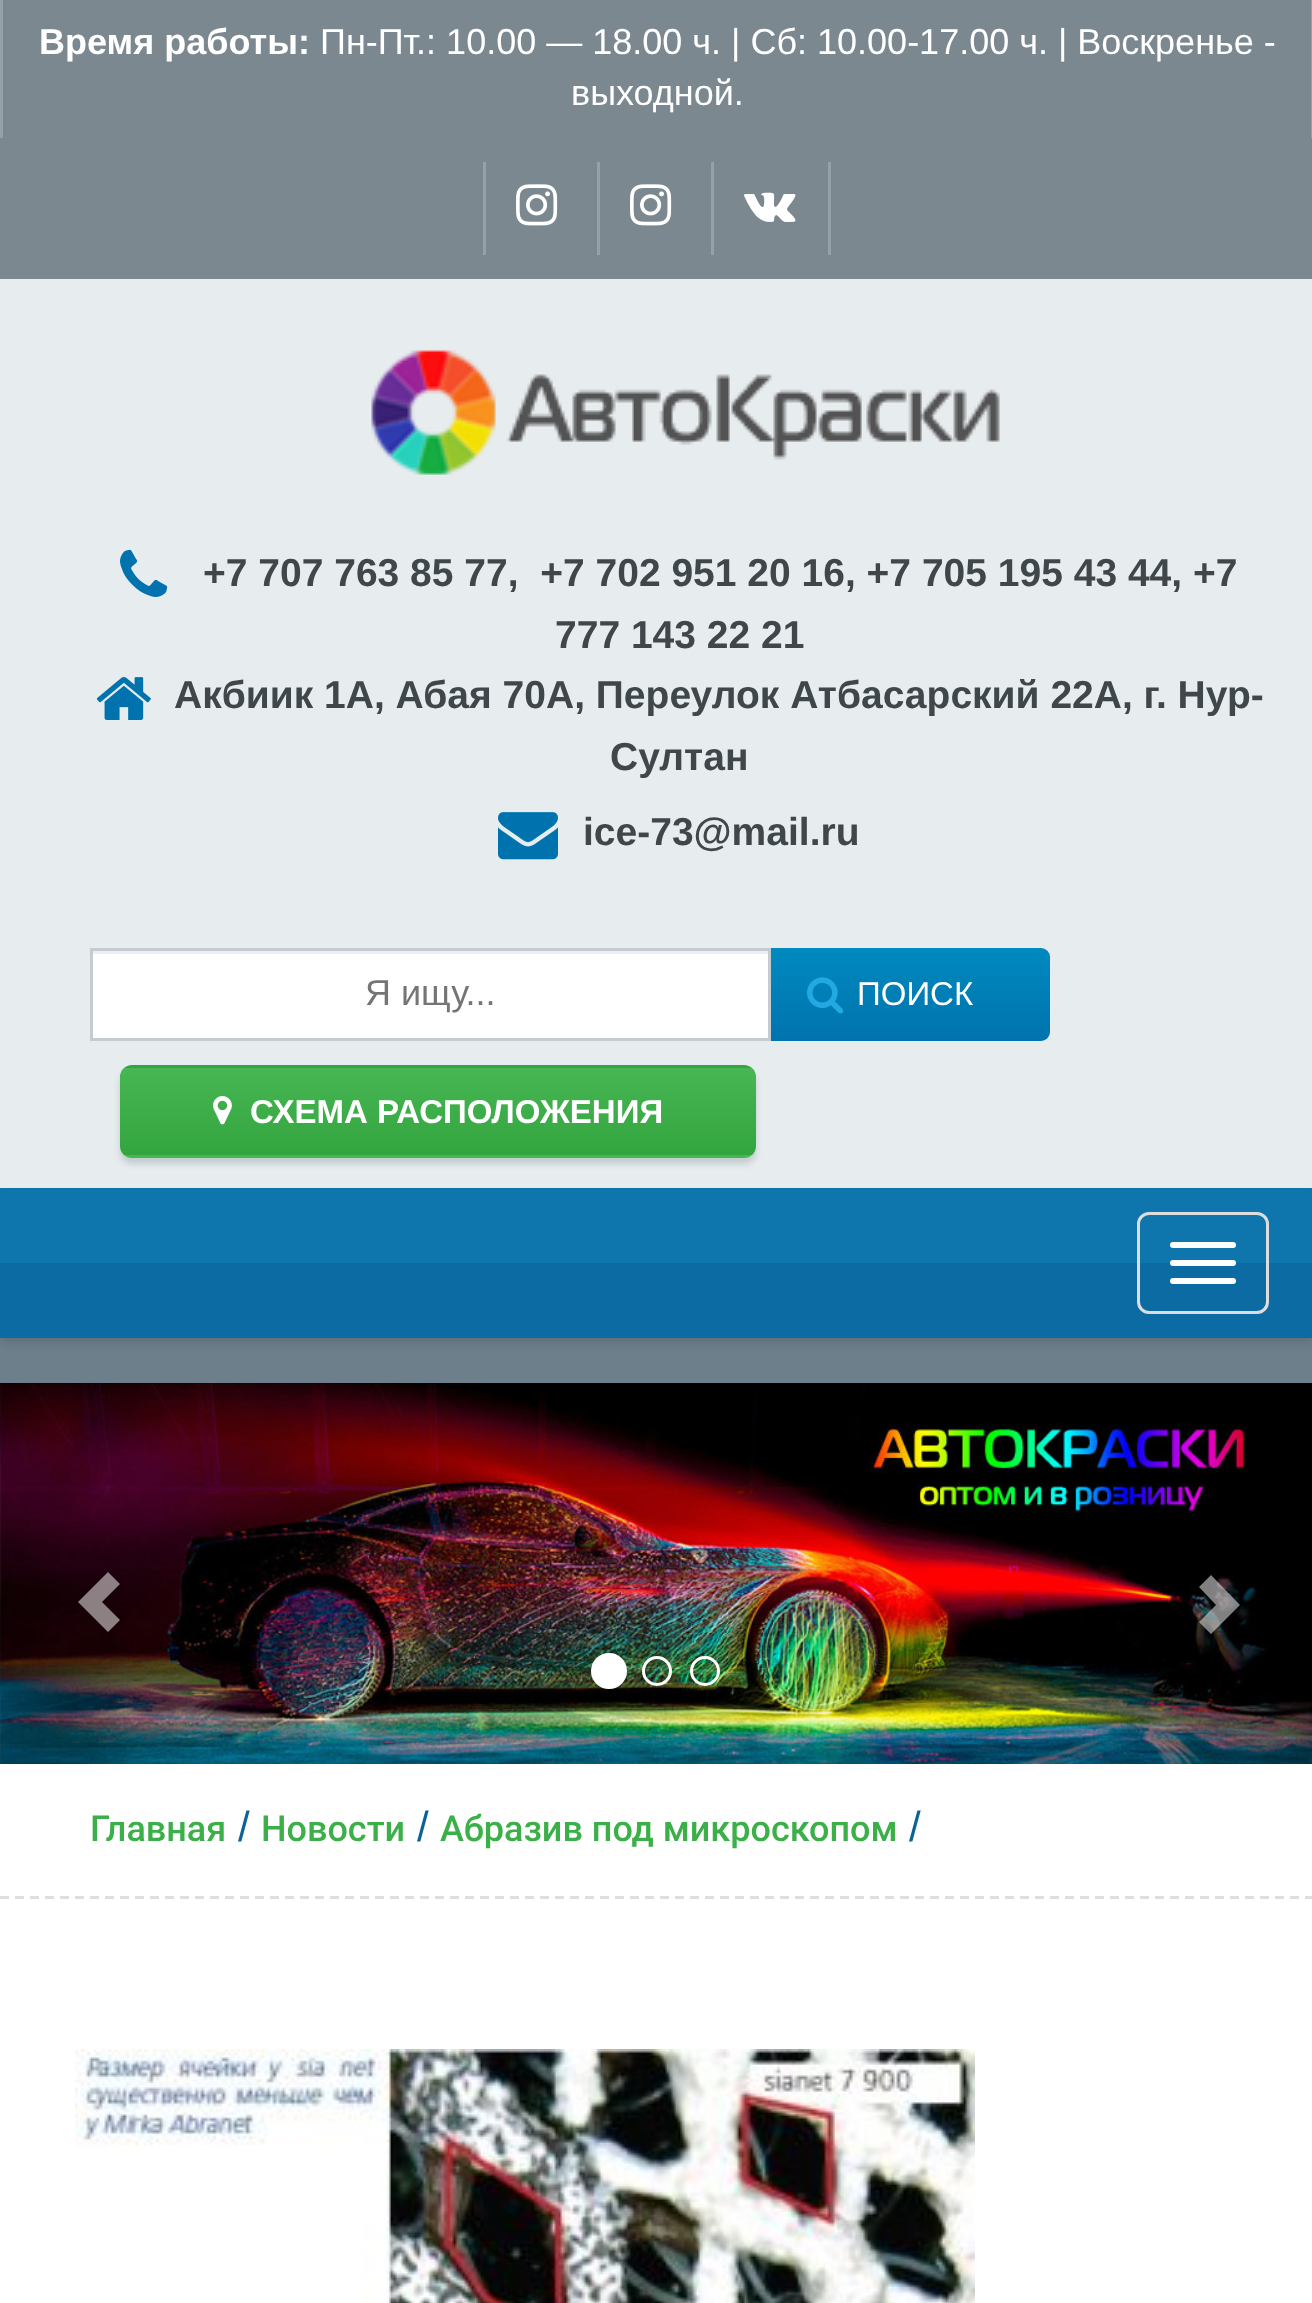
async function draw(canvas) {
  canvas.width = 1312
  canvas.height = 2303
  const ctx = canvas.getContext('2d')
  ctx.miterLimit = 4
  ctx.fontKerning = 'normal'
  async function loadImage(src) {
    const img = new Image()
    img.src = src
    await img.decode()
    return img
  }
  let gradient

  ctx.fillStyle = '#6d7f8b'
  ctx.fillRect(0, 0, 1312, 2303)
  ctx.fillStyle = '#7c888f'
  ctx.fillRect(0, 0, 1312, 279)
  ctx.fillStyle = '#94a1a9'
  ctx.fillRect(1311, 0, 1, 138)
  ctx.fillRect(0, 0, 3, 138)
  ctx.font = 'bold 36px Liberation Sans'
  ctx.fillStyle = '#fff'
  ctx.fillText('Время работы:', 39, 54)
  ctx.font = '36px Liberation Sans'
  ctx.fillText('Пн-Пт.: 10.00 — 18.00 ч. | Сб: 10.00-17.00 ч. | Воскренье -', 320, 54)
  ctx.fillText('выходной.', 571, 105)
  ctx.fillStyle = '#94a1a9'
  ctx.fillRect(483, 162, 3, 93)
  ctx.drawImage(await loadImage('image0.png'), 516, 184, 42, 42)
  ctx.fillRect(597, 162, 3, 93)
  ctx.drawImage(await loadImage('image0.png'), 630, 184, 42, 42)
  ctx.fillRect(828, 162, 3, 93)
  ctx.fillRect(711, 162, 3, 93)
  ctx.drawImage(await loadImage('image1.png'), 744, 192, 52, 30)
  ctx.fillStyle = '#e7ecef'
  ctx.fillRect(0, 279, 1312, 909)
  ctx.drawImage(await loadImage('image2.png'), 371, 350, 629, 125)
  ctx.drawImage(await loadImage('image3.png'), 120, 549, 48, 48)
  ctx.font = 'bold 39px Liberation Sans'
  ctx.fillStyle = '#40474b'
  ctx.fillText('+7 707 763 85 77,  +7 702 951 20 16, +7 705 195 43 44, +7', 203, 586)
  ctx.fillText('777 143 22 21', 555, 648)
  ctx.drawImage(await loadImage('image4.png'), 96, 677, 55, 43)
  ctx.fillText('Акбиик 1А, Абая 70А, Переулок Атбасарский 22А, г. Нур-', 174, 708)
  ctx.fillText('Султан', 610, 770)
  ctx.drawImage(await loadImage('image5.png'), 498, 812, 60, 48)
  ctx.fillText('ice-73@mail.ru', 583, 845)
  ctx.fillStyle = '#fff'
  ctx.fillRect(93, 954, 675, 84)
  ctx.fillStyle = '#eceff1'
  ctx.fillRect(93, 951, 675, 3)
  ctx.strokeStyle = '#c5ccd1'
  ctx.lineWidth = 3
  ctx.strokeRect(91.5, 949.5, 678, 90)
  ctx.font = '36px Liberation Sans'
  ctx.fillStyle = '#757575'
  ctx.fillText('Я ищу...', 365, 1005)
  gradient = ctx.createLinearGradient(911, 948, 911, 1041)
  gradient.addColorStop(0, '#008abf')
  gradient.addColorStop(1, '#0073ae')
  ctx.fillStyle = gradient
  ctx.beginPath()
  ctx.roundRect(771, 948, 279, 93, [0, 9, 9, 0])
  ctx.fill()
  ctx.drawImage(await loadImage('image6.png'), 807, 977, 37, 37)
  ctx.font = '33px Liberation Sans'
  ctx.fillStyle = '#fff'
  ctx.fillText('ПОИСК', 857, 1005)
  ctx.fillStyle = '#2032322b'
  ctx.filter = 'blur(3px)'
  ctx.beginPath()
  ctx.roundRect(120, 1071, 636, 93, 12)
  ctx.fill()
  ctx.filter = 'none'
  ctx.save()
  ctx.beginPath()
  ctx.roundRect(120, 1065, 636, 93, 12)
  ctx.clip()
  gradient = ctx.createLinearGradient(438, 981, 438, 1068)
  gradient.addColorStop(0, '#47b654')
  gradient.addColorStop(1, '#33a53e')
  ctx.fillStyle = gradient
  ctx.fillRect(120, 1065, 636, 3)
  gradient = ctx.createLinearGradient(438, 1068, 438, 1155)
  gradient.addColorStop(0, '#47b654')
  gradient.addColorStop(1, '#33a53e')
  ctx.fillStyle = gradient
  ctx.fillRect(120, 1068, 636, 87)
  gradient = ctx.createLinearGradient(438, 1155, 438, 1242)
  gradient.addColorStop(0, '#47b654')
  gradient.addColorStop(1, '#33a53e')
  ctx.fillStyle = gradient
  ctx.fillRect(120, 1155, 636, 3)
  ctx.restore()
  ctx.drawImage(await loadImage('image7.png'), 213, 1096, 19, 29)
  ctx.font = 'bold 33px Liberation Sans'
  ctx.fillStyle = '#fff'
  ctx.fillText('СХЕМА РАСПОЛОЖЕНИЯ', 250, 1123)
  ctx.fillStyle = '#0000001a'
  ctx.filter = 'blur(4.5px)'
  ctx.beginPath()
  ctx.rect(0, 1194, 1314, 150)
  ctx.fill()
  ctx.filter = 'none'
  ctx.fillStyle = '#0e76ad'
  ctx.fillRect(0, 1188, 1312, 75)
  ctx.fillStyle = '#0d6ba4'
  ctx.fillRect(0, 1263, 1312, 75)
  ctx.beginPath()
  ctx.roundRect(1138.5, 1213.5, 129, 99, 10.5)
  ctx.strokeStyle = '#ddd'
  ctx.stroke()
  ctx.fillStyle = '#fff'
  ctx.beginPath()
  ctx.roundRect(1170, 1242, 66, 6, 3)
  ctx.fill()
  ctx.beginPath()
  ctx.roundRect(1170, 1260, 66, 6, 3)
  ctx.fill()
  ctx.beginPath()
  ctx.roundRect(1170, 1278, 66, 6, 3)
  ctx.fill()
  ctx.drawImage(await loadImage('image8.png'), 0, 1383, 1312, 381)
  ctx.fillStyle = '#ffffff80'
  ctx.beginPath()
  ctx.moveTo(78, 1602)
  ctx.lineTo(108, 1632)
  ctx.lineTo(120, 1620)
  ctx.lineTo(102, 1602)
  ctx.lineTo(120, 1584)
  ctx.lineTo(108, 1572)
  ctx.closePath()
  ctx.fill()
  ctx.beginPath()
  ctx.moveTo(1199, 1622)
  ctx.lineTo(1216, 1605)
  ctx.lineTo(1199, 1587)
  ctx.lineTo(1211, 1575)
  ctx.lineTo(1240, 1605)
  ctx.lineTo(1211, 1634)
  ctx.closePath()
  ctx.fill()
  ctx.fillStyle = '#fff'
  ctx.beginPath()
  ctx.arc(609, 1671, 16.5, 0, 2 * Math.PI)
  ctx.fill()
  ctx.strokeStyle = '#fff'
  ctx.stroke()
  ctx.beginPath()
  ctx.arc(657, 1671, 13.5, 0, 2 * Math.PI)
  ctx.stroke()
  ctx.beginPath()
  ctx.arc(705, 1671, 13.5, 0, 2 * Math.PI)
  ctx.stroke()
  ctx.fillRect(0, 1764, 1312, 539)
  ctx.beginPath()
  ctx.moveTo(0, 1897.5)
  ctx.lineTo(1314, 1897.5)
  ctx.strokeStyle = '#dedede'
  ctx.setLineDash([9, 6])
  ctx.stroke()
  ctx.font = '500 36px Roboto'
  ctx.fillStyle = '#3baf48'
  ctx.fillText('Главная', 90, 1841)
  ctx.font = '42px Liberation Sans'
  ctx.fillStyle = '#096398'
  ctx.fillText('/', 238, 1841)
  ctx.font = '500 36px Roboto'
  ctx.fillStyle = '#3baf48'
  ctx.fillText('Новости', 261, 1841)
  ctx.font = '42px Liberation Sans'
  ctx.fillStyle = '#096398'
  ctx.fillText('/', 417, 1841)
  ctx.font = '500 36px Roboto'
  ctx.fillStyle = '#3baf48'
  ctx.fillText('Абразив под микроскопом', 440, 1841)
  ctx.font = '42px Liberation Sans'
  ctx.fillStyle = '#096398'
  ctx.fillText('/', 909, 1841)
  ctx.drawImage(await loadImage('image9.png'), 75, 2049, 900, 254)
}

draw(document.querySelector('canvas'))
